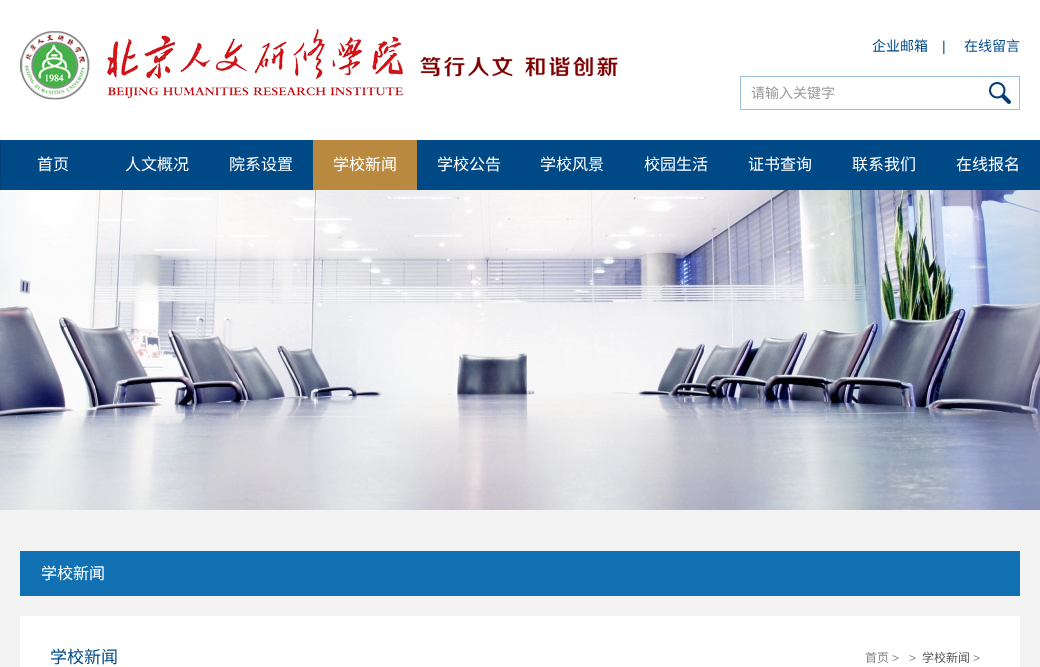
async function draw(canvas) {
  canvas.width = 1040
  canvas.height = 667
  const ctx = canvas.getContext('2d')
  ctx.miterLimit = 4
  ctx.fontKerning = 'normal'
  async function loadImage(src) {
    const img = new Image()
    img.src = src
    await img.decode()
    return img
  }

  ctx.fillStyle = '#f3f3f3'
  ctx.fillRect(0, 0, 1040, 667)
  ctx.fillStyle = '#fff'
  ctx.fillRect(0, 0, 1040, 140)
  ctx.drawImage(await loadImage('image0.png'), 20, 29, 598, 71)
  ctx.font = '14px Noto Sans CJK SC'
  ctx.fillStyle = '#004987'
  ctx.fillText('企业邮箱', 872, 51)
  ctx.font = '14px Liberation Sans'
  ctx.fillText('|', 942, 51)
  ctx.font = '14px Noto Sans CJK SC'
  ctx.fillText('在线留言', 964, 51)
  ctx.strokeStyle = '#9bc0df'
  ctx.strokeRect(740.5, 76.5, 279, 33)
  ctx.fillStyle = '#999'
  ctx.fillText('请输入关键字', 751, 98)
  ctx.drawImage(await loadImage('image1.png'), 989, 82, 22, 22)
  ctx.fillStyle = '#004987'
  ctx.fillRect(1, 140, 1039, 50)
  ctx.fillStyle = '#063f74'
  ctx.fillRect(0, 140, 1, 50)
  ctx.font = '16px Noto Sans CJK SC'
  ctx.fillStyle = '#fff'
  ctx.fillText('首页', 37, 170)
  ctx.fillText('人文概况', 125, 170)
  ctx.fillText('院系设置', 229, 170)
  ctx.fillStyle = '#ba8940'
  ctx.fillRect(313, 140, 104, 50)
  ctx.fillStyle = '#fff'
  ctx.fillText('学校新闻', 333, 170)
  ctx.fillText('学校公告', 437, 170)
  ctx.fillText('学校风景', 540, 170)
  ctx.fillText('校园生活', 644, 170)
  ctx.fillText('证书查询', 748, 170)
  ctx.fillText('联系我们', 852, 170)
  ctx.fillText('在线报名', 956, 170)
  ctx.drawImage(await loadImage('image2.png'), 0, 190, 1040, 320)
  ctx.fillStyle = '#1271b3'
  ctx.fillRect(20, 551, 1000, 45)
  ctx.fillStyle = '#fff'
  ctx.fillText('学校新闻', 41, 579)
  ctx.fillRect(20, 616, 1000, 51)
  ctx.font = '17px Noto Sans CJK SC'
  ctx.fillStyle = '#004987'
  ctx.fillText('学校新闻', 50, 663)
  ctx.font = '12px Noto Sans CJK SC'
  ctx.fillStyle = '#898989'
  ctx.fillText('首页', 865, 662)
  ctx.font = '12px Liberation Sans'
  ctx.fillText('>', 892, 662)
  ctx.fillText('>', 909, 662)
  ctx.font = '12px Noto Sans CJK SC'
  ctx.fillStyle = '#585858'
  ctx.fillText('学校新闻', 922, 662)
  ctx.font = '12px Liberation Sans'
  ctx.fillStyle = '#898989'
  ctx.fillText('>', 973, 662)
}

draw(document.querySelector('canvas'))
